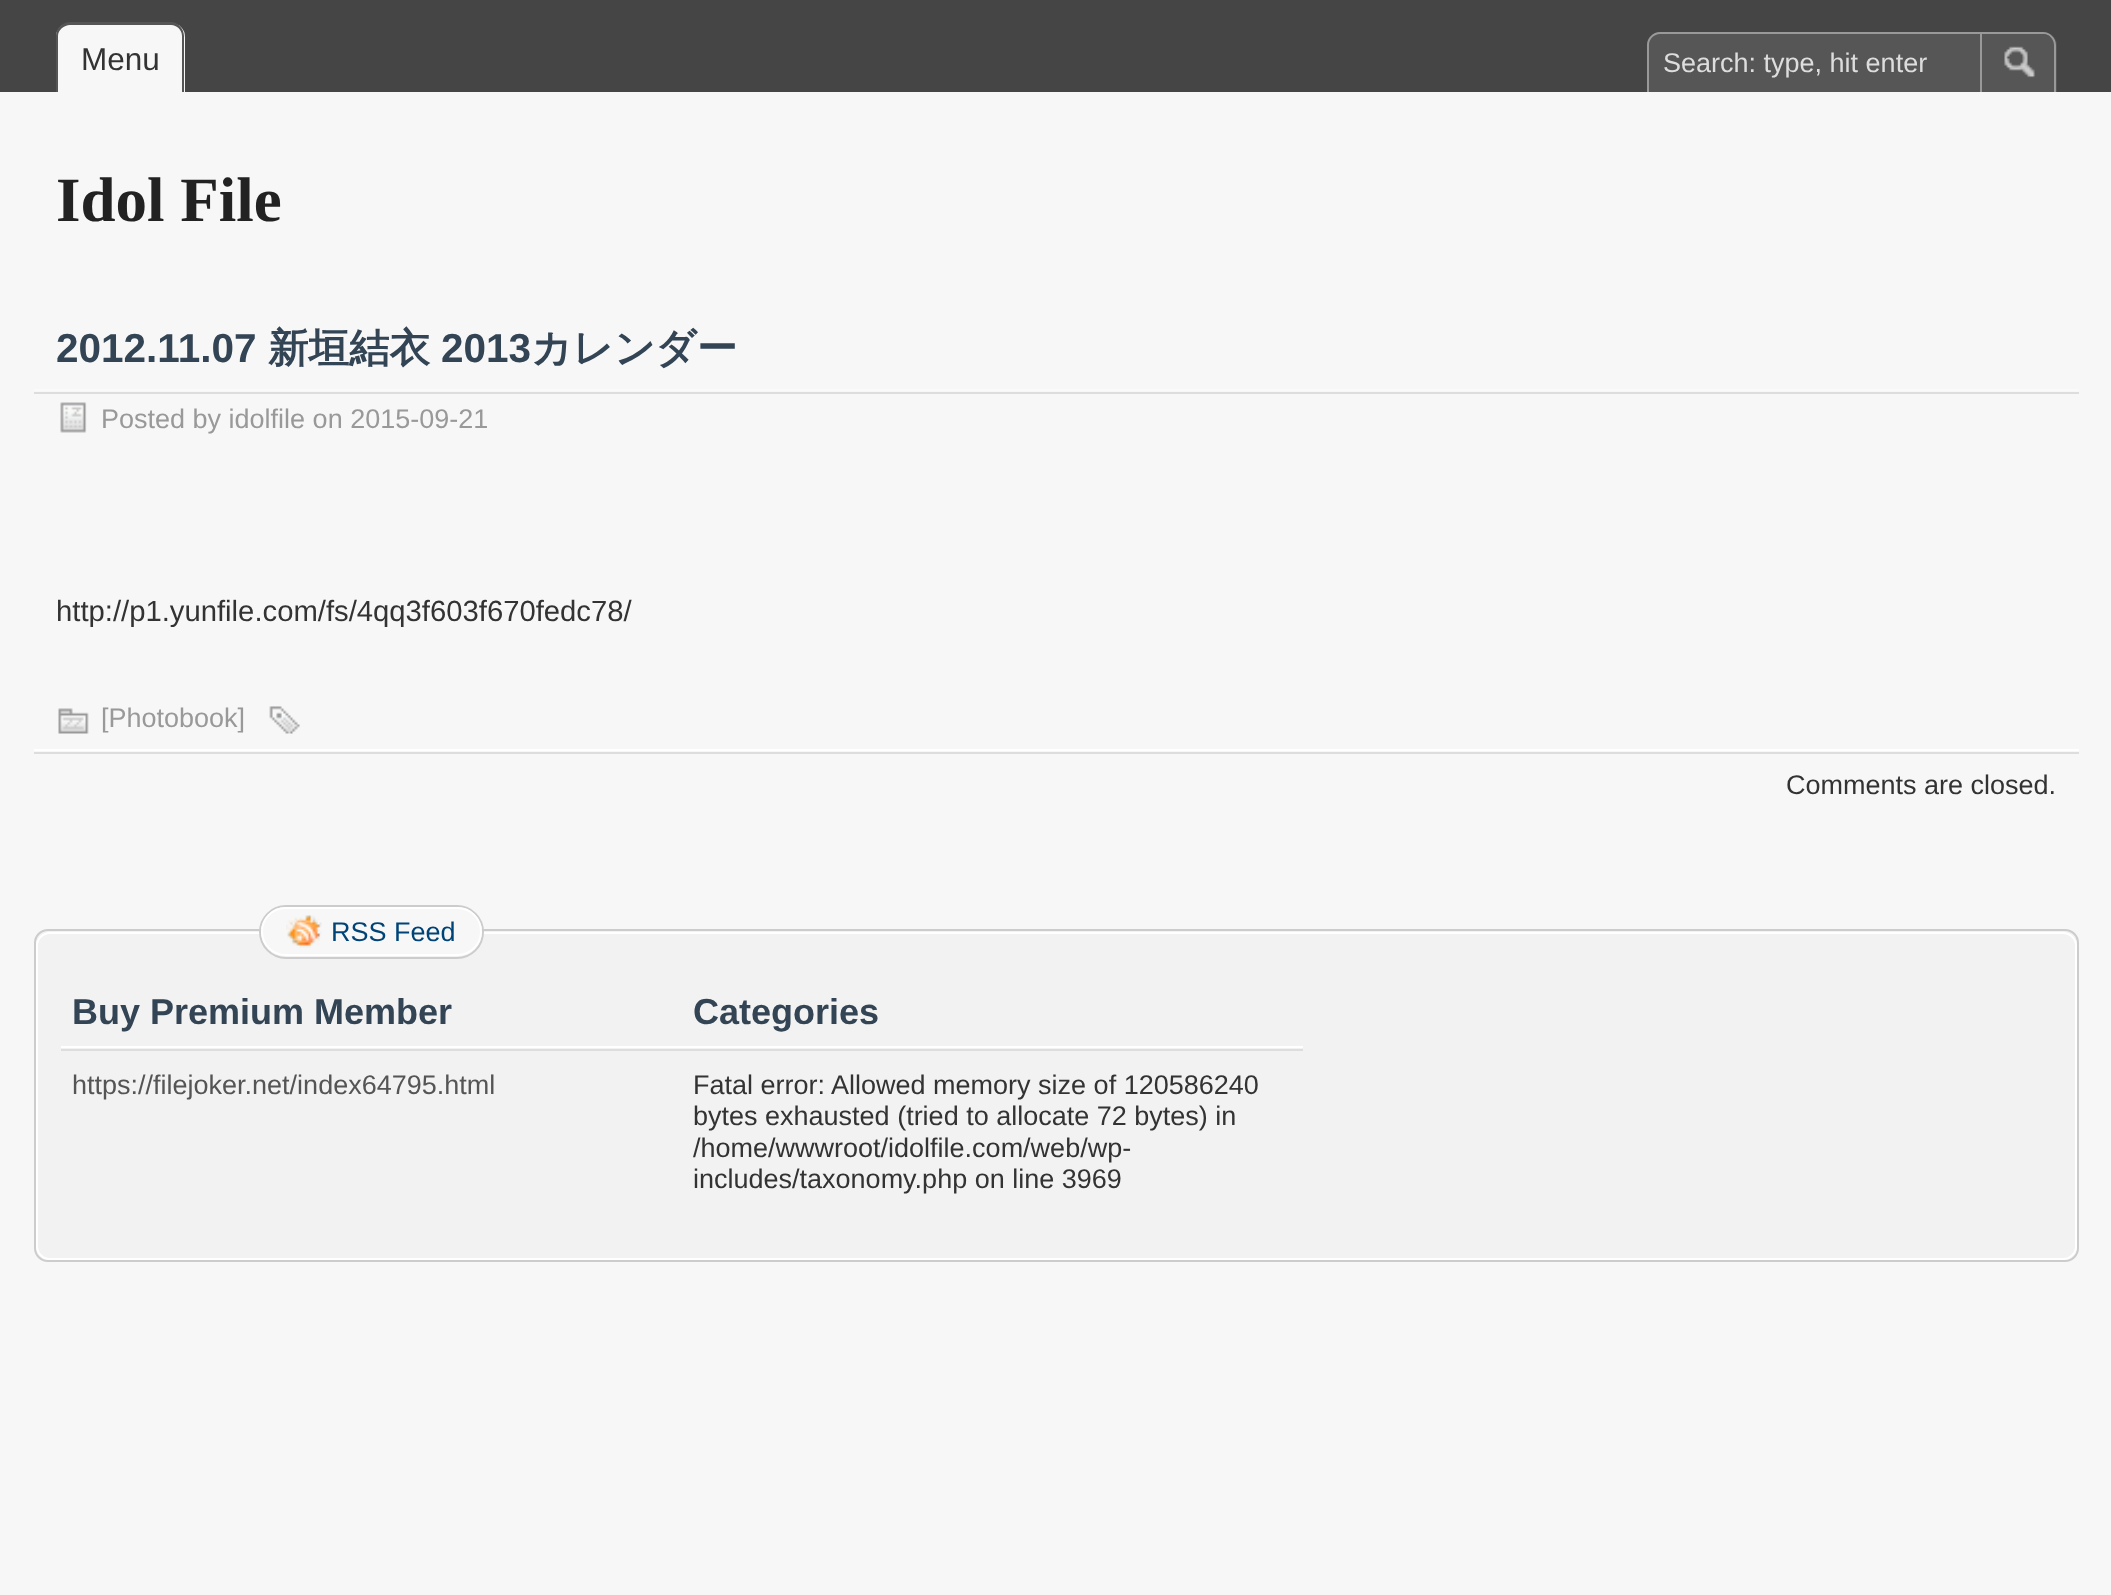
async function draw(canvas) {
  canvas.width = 2111
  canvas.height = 1595
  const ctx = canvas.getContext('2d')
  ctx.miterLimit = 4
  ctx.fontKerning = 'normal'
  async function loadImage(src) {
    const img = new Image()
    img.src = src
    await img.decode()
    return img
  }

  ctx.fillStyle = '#f7f7f7'
  ctx.fillRect(0, 0, 2111, 1595)
  ctx.fillStyle = '#454546'
  ctx.fillRect(0, 0, 2111, 92)
  ctx.fillStyle = '#f7f7f7'
  ctx.beginPath()
  ctx.roundRect(56, 23, 129, 69, [14, 14, 0, 0])
  ctx.fill()
  ctx.fillStyle = '#555'
  ctx.beginPath()
  ctx.moveTo(70, 22)
  ctx.lineTo(171, 22)
  ctx.bezierCurveTo(178, 22, 184, 29, 184, 36)
  ctx.lineTo(184, 92)
  ctx.lineTo(56, 92)
  ctx.lineTo(56, 36)
  ctx.bezierCurveTo(56, 29, 62, 22, 70, 22)
  ctx.closePath()
  ctx.moveTo(70, 25)
  ctx.lineTo(171, 25)
  ctx.bezierCurveTo(177, 25, 182, 30, 182, 36)
  ctx.lineTo(182, 92)
  ctx.lineTo(58, 92)
  ctx.lineTo(58, 36)
  ctx.bezierCurveTo(58, 30, 64, 25, 70, 25)
  ctx.closePath()
  ctx.fill('evenodd')
  ctx.font = '31.5px Liberation Sans'
  ctx.fillStyle = '#333'
  ctx.fillText('Menu', 81, 70)
  ctx.fillStyle = '#565657'
  ctx.beginPath()
  ctx.roundRect(1647, 32, 410, 60, [14, 14, 0, 0])
  ctx.fill()
  ctx.fillStyle = '#999'
  ctx.beginPath()
  ctx.moveTo(1660, 32)
  ctx.lineTo(2043, 32)
  ctx.bezierCurveTo(2050, 32, 2056, 38, 2056, 45)
  ctx.lineTo(2056, 92)
  ctx.lineTo(1647, 92)
  ctx.lineTo(1647, 45)
  ctx.bezierCurveTo(1647, 38, 1653, 32, 1660, 32)
  ctx.closePath()
  ctx.moveTo(1660, 34)
  ctx.lineTo(2043, 34)
  ctx.bezierCurveTo(2049, 34, 2054, 39, 2054, 45)
  ctx.lineTo(2054, 92)
  ctx.lineTo(1649, 92)
  ctx.lineTo(1649, 45)
  ctx.bezierCurveTo(1649, 39, 1654, 34, 1660, 34)
  ctx.closePath()
  ctx.fill('evenodd')
  ctx.font = '27px Liberation Sans'
  ctx.fillStyle = '#ddd'
  ctx.fillText('Search: type, hit enter', 1663, 72)
  ctx.save()
  ctx.beginPath()
  ctx.roundRect(1649, 34, 405, 58, [11, 11, 0, 0])
  ctx.clip()
  ctx.fillStyle = '#565657'
  ctx.fillRect(1982, 34, 68, 58)
  ctx.restore()
  ctx.drawImage(await loadImage('image0.png'), 2004, 46, 31, 32)
  ctx.fillStyle = '#999'
  ctx.fillRect(1980, 34, 2, 58)
  ctx.font = 'bold 63px Liberation Serif'
  ctx.fillStyle = '#222'
  ctx.fillText('Idol File', 56, 221)
  ctx.fillStyle = '#fafafa'
  ctx.fillRect(34, 389, 2045, 2)
  ctx.font = 'bold 40.5px Liberation Sans'
  ctx.fillStyle = '#345'
  ctx.fillText('2012.11.07', 56, 362)
  ctx.font = 'bold 40.5px WenQuanYi Zen Hei'
  ctx.fillText('新垣結衣', 268, 362)
  ctx.font = 'bold 40.5px Liberation Sans'
  ctx.fillText('2013', 441, 362)
  ctx.font = 'bold 40.5px WenQuanYi Zen Hei'
  ctx.fillText('カレンダー', 531, 362)
  ctx.fillStyle = '#ddd'
  ctx.fillRect(34, 392, 2045, 2)
  ctx.drawImage(await loadImage('image1.png'), 60, 402, 27, 31)
  ctx.font = '27px Liberation Sans'
  ctx.fillStyle = '#999'
  ctx.fillText('Posted by idolfile on 2015-09-21', 101, 428)
  ctx.font = '29.25px Liberation Sans'
  ctx.fillStyle = '#333'
  ctx.fillText('http://p1.yunfile.com/fs/4qq3f603f670fedc78/', 56, 621)
  ctx.fillStyle = '#fff'
  ctx.fillRect(34, 749, 2045, 2)
  ctx.drawImage(await loadImage('image2.png'), 58, 708, 31, 26)
  ctx.font = '27px Liberation Sans'
  ctx.fillStyle = '#999'
  ctx.fillText('[Photobook]', 101, 727)
  ctx.drawImage(await loadImage('image3.png'), 269, 706, 31, 28)
  ctx.fillStyle = '#ddd'
  ctx.fillRect(34, 752, 2045, 2)
  ctx.fillStyle = '#333'
  ctx.fillText('Comments are closed.', 1786, 794)
  ctx.fillStyle = '#f2f2f2'
  ctx.beginPath()
  ctx.roundRect(35, 930, 2043, 331, 13)
  ctx.fill()
  ctx.strokeStyle = '#ccc'
  ctx.lineWidth = 2
  ctx.stroke()
  ctx.beginPath()
  ctx.roundRect(37, 933, 2039, 326, 13)
  ctx.strokeStyle = '#fff'
  ctx.stroke()
  ctx.beginPath()
  ctx.roundRect(260, 906, 223, 52, 26)
  ctx.strokeStyle = '#ccc'
  ctx.stroke()
  ctx.fillStyle = '#f7f7f7'
  ctx.beginPath()
  ctx.roundRect(262, 908, 219, 47, 23.5)
  ctx.fill()
  ctx.strokeStyle = '#fff'
  ctx.stroke()
  ctx.drawImage(await loadImage('image4.png'), 286, 915, 36, 33)
  ctx.fillStyle = '#047'
  ctx.fillText('RSS Feed', 331, 941)
  ctx.fillStyle = '#fff'
  ctx.fillRect(61, 1046, 1242, 2)
  ctx.font = 'bold 36px Liberation Sans'
  ctx.fillStyle = '#345'
  ctx.fillText('Buy Premium Member', 72, 1024)
  ctx.fillStyle = '#ddd'
  ctx.fillRect(61, 1049, 1242, 2)
  ctx.font = '27px Liberation Sans'
  ctx.fillStyle = '#555'
  ctx.fillText('https://filejoker.net/index64795.html', 72, 1094)
  ctx.font = 'bold 36px Liberation Sans'
  ctx.fillStyle = '#345'
  ctx.fillText('Categories', 693, 1024)
  ctx.font = '27px Liberation Sans'
  ctx.fillStyle = '#333'
  ctx.fillText('Fatal error: Allowed memory size of 120586240', 693, 1094)
  ctx.fillText('bytes exhausted (tried to allocate 72 bytes) in', 693, 1125)
  ctx.fillText('/home/wwwroot/idolfile.com/web/wp-', 693, 1157)
  ctx.fillText('includes/taxonomy.php on line 3969', 693, 1188)
}

draw(document.querySelector('canvas'))
